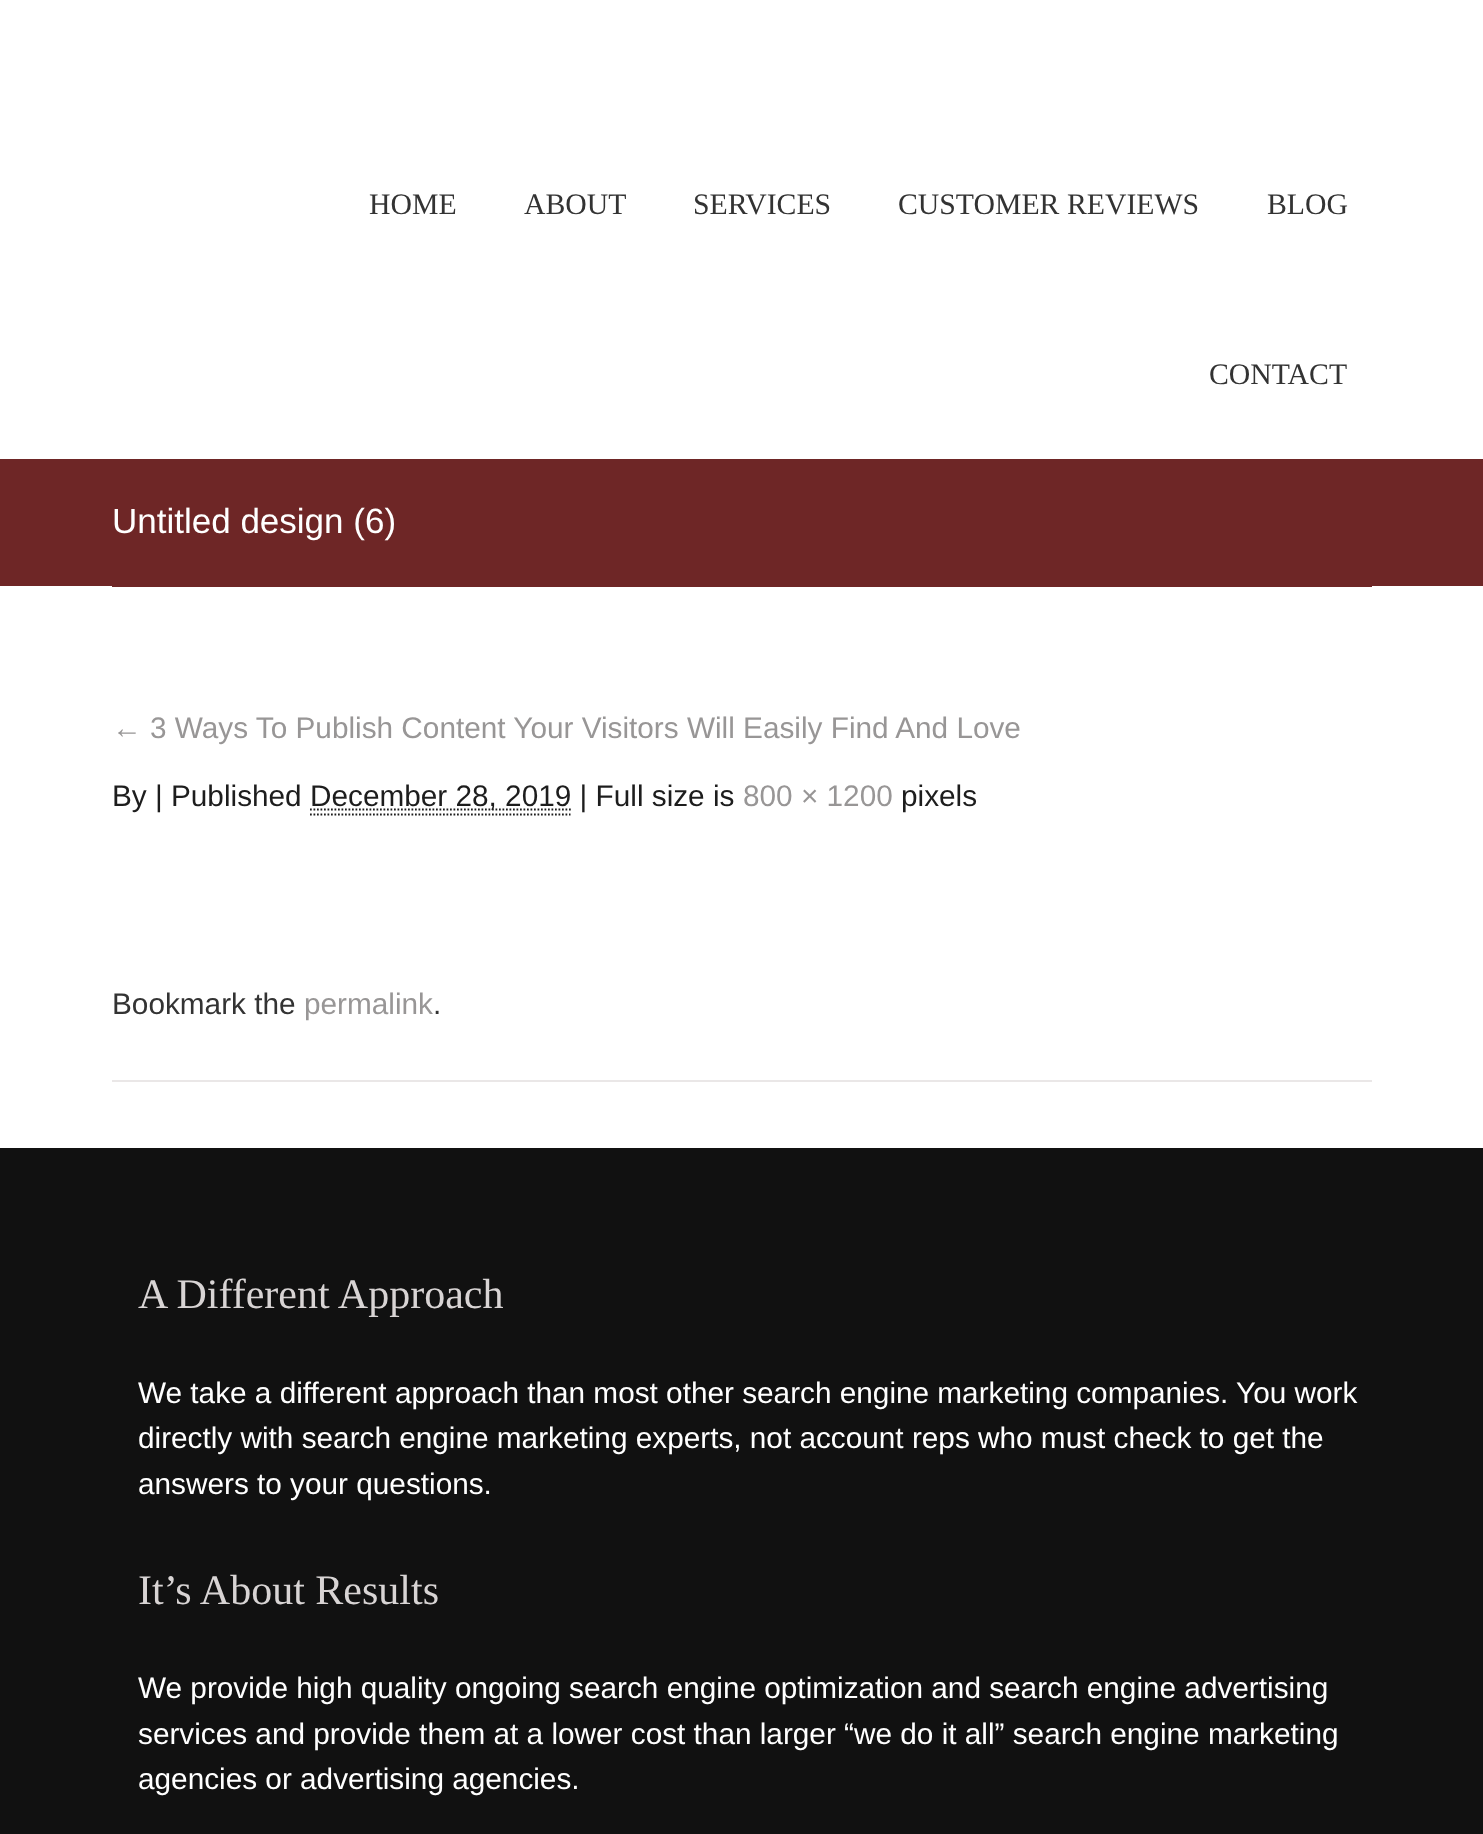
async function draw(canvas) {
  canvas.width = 1483
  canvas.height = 1834
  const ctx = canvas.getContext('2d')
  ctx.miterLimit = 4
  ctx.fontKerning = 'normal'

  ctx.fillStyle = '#fff'
  ctx.fillRect(0, 0, 1483, 1834)
  ctx.font = '29.75px Liberation Serif'
  ctx.fillStyle = '#333'
  ctx.fillText('HOME', 369, 214)
  ctx.fillText('ABOUT', 524, 214)
  ctx.fillText('SERVICES', 693, 214)
  ctx.fillText('CUSTOMER REVIEWS', 898, 214)
  ctx.fillText('BLOG', 1267, 214)
  ctx.fillText('CONTACT', 1209, 384)
  ctx.fillStyle = '#6e2626'
  ctx.fillRect(0, 459, 1483, 127)
  ctx.fillRect(112, 586, 1260, 1)
  ctx.font = '35px Liberation Sans'
  ctx.fillStyle = '#fff'
  ctx.fillText('Untitled design (6)', 112, 533)
  ctx.fillStyle = '#eae7e7'
  ctx.fillRect(112, 1080, 1260, 2)
  ctx.font = '29.75px Liberation Sans'
  ctx.fillStyle = '#989696'
  ctx.fillText('← 3 Ways To Publish Content Your Visitors Will Easily Find And Love', 112, 738)
  ctx.fillStyle = '#1d1d1d'
  ctx.fillText('By | Published', 112, 806)
  ctx.beginPath()
  ctx.moveTo(310, 809.5)
  ctx.lineTo(571.5, 809.5)
  ctx.strokeStyle = '#1d1d1d'
  ctx.lineWidth = 1.8
  ctx.setLineDash([1.75, 1.75])
  ctx.stroke()
  ctx.fillText('December 28, 2019 | Full size is', 310, 806)
  ctx.beginPath()
  ctx.moveTo(310, 814.5)
  ctx.lineTo(570.5, 814.5)
  ctx.stroke()
  ctx.fillStyle = '#989696'
  ctx.fillText('800 × 1200', 743, 806)
  ctx.fillStyle = '#1d1d1d'
  ctx.fillText('pixels', 901, 806)
  ctx.fillStyle = '#333'
  ctx.fillText('Bookmark the', 112, 1014)
  ctx.fillStyle = '#989696'
  ctx.fillText('permalink', 304, 1014)
  ctx.fillStyle = '#333'
  ctx.fillText('.', 433, 1014)
  ctx.fillStyle = '#111'
  ctx.fillRect(0, 1148, 1483, 686)
  ctx.font = '42px Liberation Serif'
  ctx.fillStyle = '#d8d4d4'
  ctx.fillText('A Different Approach', 138, 1308)
  ctx.font = '29.75px Liberation Sans'
  ctx.fillStyle = '#fff'
  ctx.fillText('We take a different approach than most other search engine marketing companies. You work', 138, 1403)
  ctx.fillText('directly with search engine marketing experts, not account reps who must check to get the', 138, 1448)
  ctx.fillText('answers to your questions.', 138, 1494)
  ctx.font = '42px Liberation Serif'
  ctx.fillStyle = '#d8d4d4'
  ctx.fillText('It’s About Results', 138, 1604)
  ctx.font = '29.75px Liberation Sans'
  ctx.fillStyle = '#fff'
  ctx.fillText('We provide high quality ongoing search engine optimization and search engine advertising', 138, 1698)
  ctx.fillText('services and provide them at a lower cost than larger “we do it all” search engine marketing', 138, 1744)
  ctx.fillText('agencies or advertising agencies.', 138, 1789)
}

draw(document.querySelector('canvas'))
